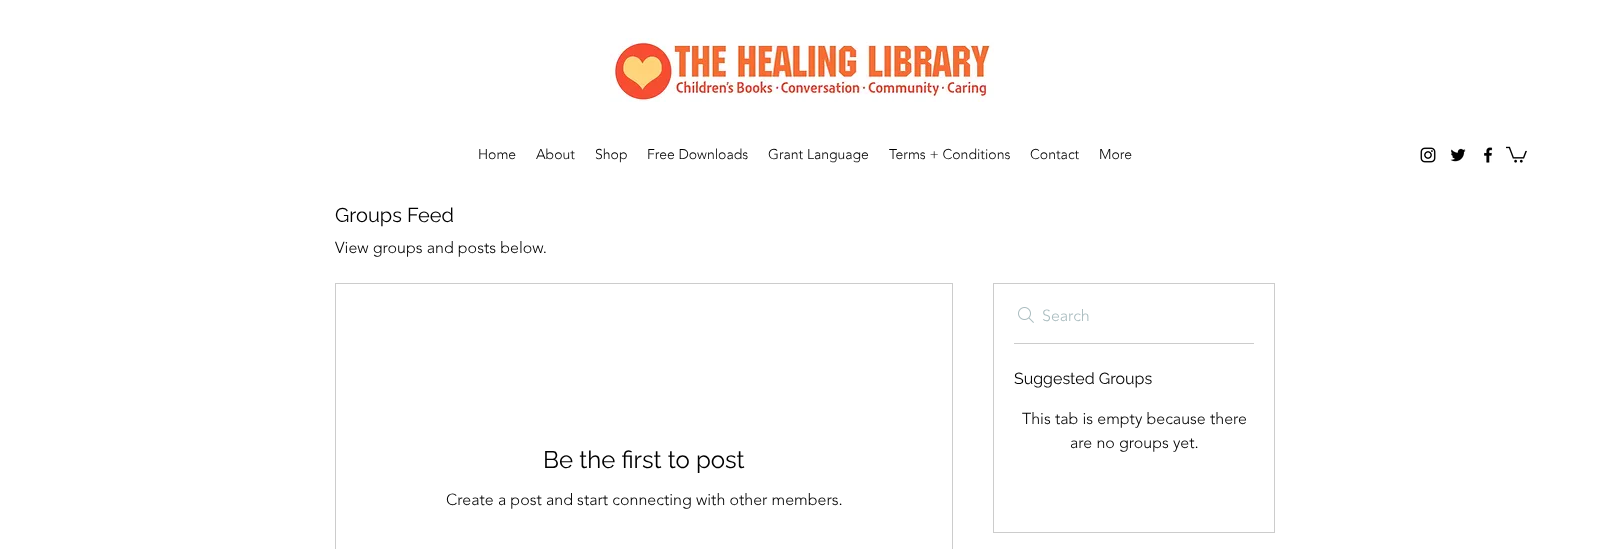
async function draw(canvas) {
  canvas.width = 1610
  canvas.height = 549
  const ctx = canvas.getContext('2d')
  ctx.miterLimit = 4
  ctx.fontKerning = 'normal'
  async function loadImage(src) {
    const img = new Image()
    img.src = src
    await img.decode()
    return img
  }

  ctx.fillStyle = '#fff'
  ctx.fillRect(0, 0, 1610, 549)
  ctx.drawImage(await loadImage('image0.png'), 610, 38, 384, 64)
  ctx.font = '300 14px "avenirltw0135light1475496"'
  ctx.fillStyle = '#000'
  ctx.fillText('Home', 478, 159)
  ctx.fillText('About', 536, 159)
  ctx.fillText('Shop', 595, 159)
  ctx.fillText('Free Downloads', 647, 159)
  ctx.fillText('Grant Language', 768, 159)
  ctx.fillText('Terms + Conditions', 889, 159)
  ctx.fillText('Contact', 1030, 159)
  ctx.fillText('More', 1099, 159)
  ctx.drawImage(await loadImage('image1.png'), 1420, 147, 16, 16)
  ctx.drawImage(await loadImage('image2.png'), 1450, 148, 16, 14)
  ctx.drawImage(await loadImage('image3.png'), 1484, 147, 9, 16)
  ctx.drawImage(await loadImage('image4.png'), 1506, 146, 21, 17)
  ctx.font = '20px Raleway'
  ctx.fillText('Groups Feed', 335, 222)
  ctx.font = '300 16px "avenirltw0135light1475496"'
  ctx.fillText('View groups and posts below.', 335, 253)
  ctx.strokeStyle = '#ccc'
  ctx.strokeRect(993.5, 283.5, 281, 249)
  ctx.drawImage(await loadImage('image5.png'), 1018, 307, 16, 16)
  ctx.fillStyle = '#aabcbf'
  ctx.fillText('Search', 1042, 321)
  ctx.fillStyle = '#ccc'
  ctx.fillRect(1014, 343, 240, 1)
  ctx.font = '16px Raleway'
  ctx.fillStyle = '#000'
  ctx.fillText('Suggested Groups', 1014, 384)
  ctx.font = '300 16px "avenirltw0135light1475496"'
  ctx.fillText('This tab is empty because there', 1022, 424)
  ctx.fillText('are no groups yet.', 1070, 448)
  ctx.strokeRect(335.5, 283.5, 617, 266)
  ctx.font = '24px Raleway'
  ctx.fillText('Be the first to post', 543, 468)
  ctx.font = '300 16px "avenirltw0135light1475496"'
  ctx.fillText('Create a post and start connecting with other members.', 446, 505)
}

draw(document.querySelector('canvas'))
